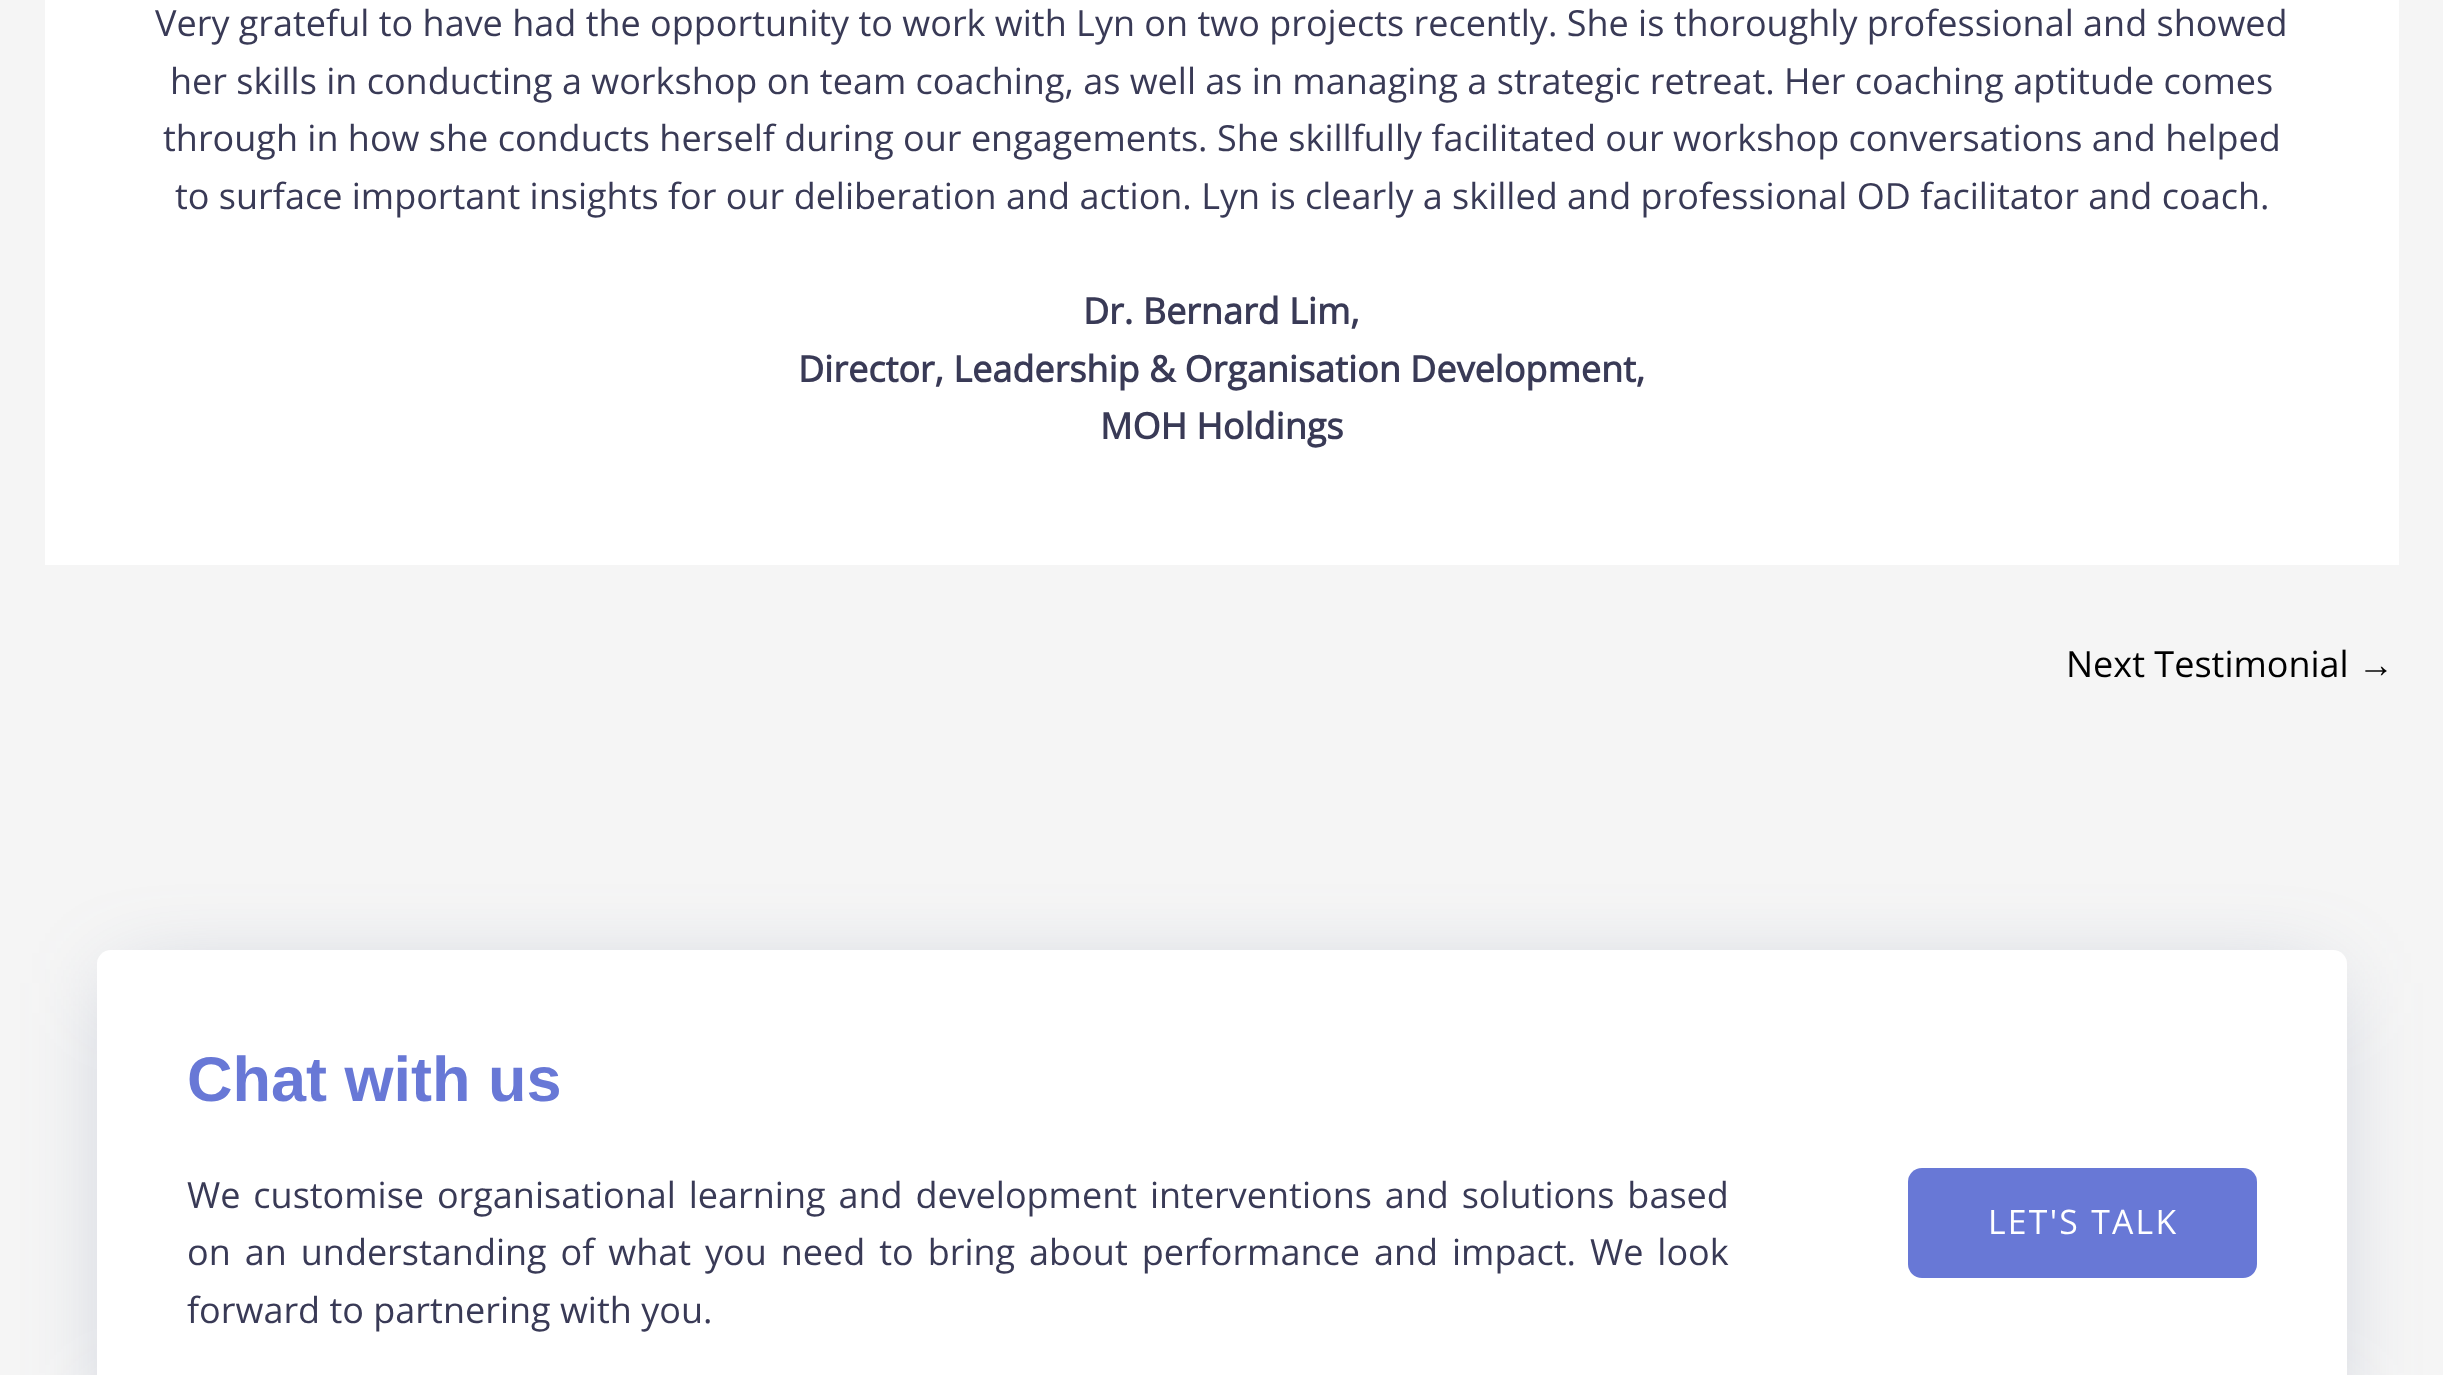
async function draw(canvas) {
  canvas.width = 2443
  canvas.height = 1375
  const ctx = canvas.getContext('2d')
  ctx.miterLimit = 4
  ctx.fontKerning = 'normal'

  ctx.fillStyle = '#f5f5f5'
  ctx.fillRect(0, 0, 2443, 1375)
  ctx.fillStyle = '#fff'
  ctx.fillRect(45, 0, 2354, 565)
  ctx.font = '36px Open Sans'
  ctx.fillStyle = '#393a56'
  ctx.fillText('Very grateful to have had the opportunity to work with Lyn on two projects recently. She is thoroughly professional and showed', 155, 36)
  ctx.fillText('her skills in conducting a workshop on team coaching, as well as in managing a strategic retreat. Her coaching aptitude comes', 170, 94)
  ctx.fillText('through in how she conducts herself during our engagements. She skillfully facilitated our workshop conversations and helped', 163, 151)
  ctx.fillText('to surface important insights for our deliberation and action. Lyn is clearly a skilled and professional OD facilitator and coach.', 175, 209)
  ctx.font = 'bold 36px Open Sans'
  ctx.fillText('Dr. Bernard Lim,', 1083, 324)
  ctx.fillText('Director, Leadership & Organisation Development,', 798, 382)
  ctx.fillText('MOH Holdings', 1100, 439)
  ctx.font = '36px Open Sans'
  ctx.fillStyle = '#000'
  ctx.fillText('Next Testimonial', 2066, 677)
  ctx.font = '36px Liberation Sans'
  ctx.fillText('→', 2358, 677)
  ctx.fillStyle = '#56689254'
  ctx.filter = 'blur(45px)'
  ctx.beginPath()
  ctx.rect(119, 983, 2205, 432)
  ctx.fill()
  ctx.filter = 'none'
  ctx.fillStyle = '#fff'
  ctx.beginPath()
  ctx.roundRect(97, 950, 2250, 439, 14)
  ctx.fill()
  ctx.font = 'bold 63px Liberation Sans'
  ctx.fillStyle = '#6878d6'
  ctx.fillText('Chat with us', 187, 1101)
  ctx.wordSpacing = '3.5px'
  ctx.font = '36px Open Sans'
  ctx.fillStyle = '#393a56'
  ctx.fillText('We customise organisational learning and development interventions and solutions based', 187, 1208)
  ctx.wordSpacing = '4.6px'
  ctx.fillText('on an understanding of what you need to bring about performance and impact. We look', 187, 1265)
  ctx.wordSpacing = '0px'
  ctx.fillText('forward to partnering with you.', 187, 1323)
  ctx.fillStyle = '#6878d6'
  ctx.beginPath()
  ctx.roundRect(1908, 1168, 349, 110, 14)
  ctx.fill()
  ctx.letterSpacing = '2.25px'
  ctx.font = '33.75px Open Sans'
  ctx.fillStyle = '#fff'
  ctx.fillText('LET\'S TALK', 1988, 1234)
}

draw(document.querySelector('canvas'))
